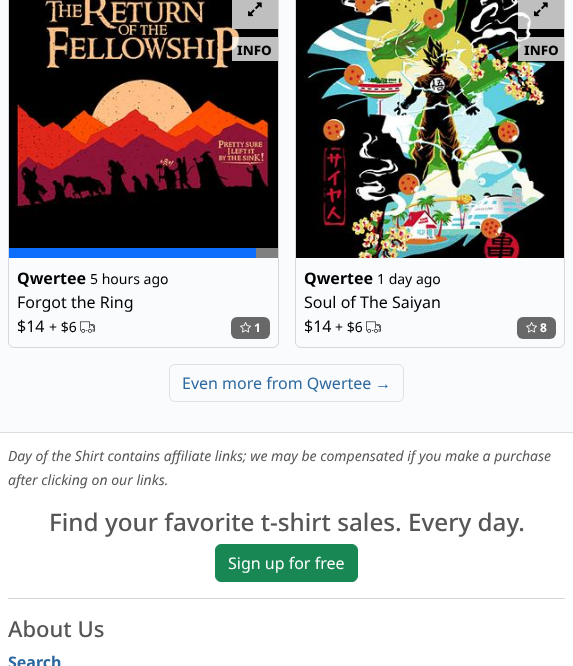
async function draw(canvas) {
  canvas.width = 573
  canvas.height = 666
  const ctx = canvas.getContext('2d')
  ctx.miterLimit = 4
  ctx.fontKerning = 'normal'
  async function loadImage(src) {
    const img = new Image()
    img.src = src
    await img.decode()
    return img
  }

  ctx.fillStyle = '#fafbfd'
  ctx.fillRect(0, 0, 573, 666)
  ctx.beginPath()
  ctx.roundRect(8.5, -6.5, 270, 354, 5.5)
  ctx.strokeStyle = '#d7d8d9'
  ctx.stroke()
  ctx.drawImage(await loadImage('image1.png'), 9, 0, 269, 248)
  ctx.fillStyle = '#ffffffbf'
  ctx.fillRect(232, 0, 46, 29)
  ctx.drawImage(await loadImage('image0.png'), 248, 2, 14, 15)
  ctx.fillRect(232, 37, 46, 24)
  ctx.font = 'bold 16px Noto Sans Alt'
  ctx.fillStyle = '#000'
  ctx.fillText('info', 237, 55)
  ctx.fillStyle = '#808080'
  ctx.fillRect(256, 248, 22, 10)
  ctx.fillStyle = '#0d6efd'
  ctx.fillRect(9, 248, 247, 10)
  ctx.font = 'bold 16px Noto Sans'
  ctx.fillStyle = '#000'
  ctx.fillText('Qwertee', 17, 284)
  ctx.font = '14px Noto Sans'
  ctx.fillText('5 hours ago', 90, 284)
  ctx.font = '16px Noto Sans'
  ctx.fillText('Forgot the Ring', 17, 308)
  ctx.fillText('$14', 17, 332)
  ctx.font = '14px Noto Sans'
  ctx.fillText('+ $6', 49, 332)
  ctx.drawImage(await loadImage('image2.png'), 80, 321, 15, 12)
  ctx.fillStyle = '#686868'
  ctx.beginPath()
  ctx.roundRect(231, 317, 39, 22, 6)
  ctx.fill()
  ctx.drawImage(await loadImage('image3.png'), 240, 322, 11, 11)
  ctx.font = 'bold 12px Noto Sans'
  ctx.fillStyle = '#fff'
  ctx.fillText('1', 254, 332)
  ctx.beginPath()
  ctx.roundRect(295.5, -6.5, 269, 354, 5.5)
  ctx.stroke()
  ctx.drawImage(await loadImage('image4.png'), 296, 0, 268, 258)
  ctx.fillStyle = '#ffffffbf'
  ctx.fillRect(518, 0, 46, 29)
  ctx.drawImage(await loadImage('image0.png'), 534, 2, 14, 15)
  ctx.fillRect(518, 37, 46, 24)
  ctx.font = 'bold 16px Noto Sans Alt'
  ctx.fillStyle = '#000'
  ctx.fillText('info', 524, 55)
  ctx.font = 'bold 16px Noto Sans'
  ctx.fillText('Qwertee', 304, 284)
  ctx.font = '14px Noto Sans'
  ctx.fillText('1 day ago', 377, 284)
  ctx.font = '16px Noto Sans'
  ctx.fillText('Soul of The Saiyan', 304, 308)
  ctx.fillText('$14', 304, 332)
  ctx.font = '14px Noto Sans'
  ctx.fillText('+ $6', 335, 332)
  ctx.drawImage(await loadImage('image2.png'), 366, 321, 15, 12)
  ctx.fillStyle = '#686868'
  ctx.beginPath()
  ctx.roundRect(517, 317, 39, 22, 6)
  ctx.fill()
  ctx.drawImage(await loadImage('image3.png'), 526, 322, 11, 11)
  ctx.font = 'bold 12px Noto Sans'
  ctx.fillStyle = '#fff'
  ctx.fillText('8', 540, 332)
  ctx.beginPath()
  ctx.roundRect(169.5, 364.5, 234, 37, 5.5)
  ctx.strokeStyle = '#dee2e6'
  ctx.stroke()
  ctx.font = '16px Noto Sans'
  ctx.fillStyle = '#2d699e'
  ctx.fillText('Even more from Qwertee', 182, 389)
  ctx.font = '16px Liberation Sans'
  ctx.fillText('→', 375, 389)
  ctx.fillStyle = '#fff'
  ctx.fillRect(0, 433, 573, 233)
  ctx.fillStyle = '#ddd'
  ctx.fillRect(0, 432, 573, 1)
  ctx.font = 'italic 14px Noto Sans'
  ctx.fillStyle = '#565656'
  ctx.fillText('Day of the Shirt contains affiliate links; we may be compensated if you make a purchase', 8, 461)
  ctx.fillText('after clicking on our links.', 8, 485)
  ctx.font = '500 24.25px Noto Sans'
  ctx.fillText('Find your favorite t-shirt sales. Every day.', 49, 531)
  ctx.fillStyle = '#198754'
  ctx.beginPath()
  ctx.roundRect(215.5, 544.5, 142, 37, 5.5)
  ctx.fill()
  ctx.strokeStyle = '#198754'
  ctx.stroke()
  ctx.font = '16px Noto Sans'
  ctx.fillStyle = '#fff'
  ctx.fillText('Sign up for free', 228, 569)
  ctx.fillStyle = '#d5d5d5'
  ctx.fillRect(8, 598, 557, 1)
  ctx.font = '500 22px Noto Sans'
  ctx.fillStyle = '#565656'
  ctx.fillText('About Us', 8, 637)
  ctx.font = 'bold 16px Noto Sans'
  ctx.fillStyle = '#2d699e'
  ctx.fillText('Search', 8, 668)
}

draw(document.querySelector('canvas'))
